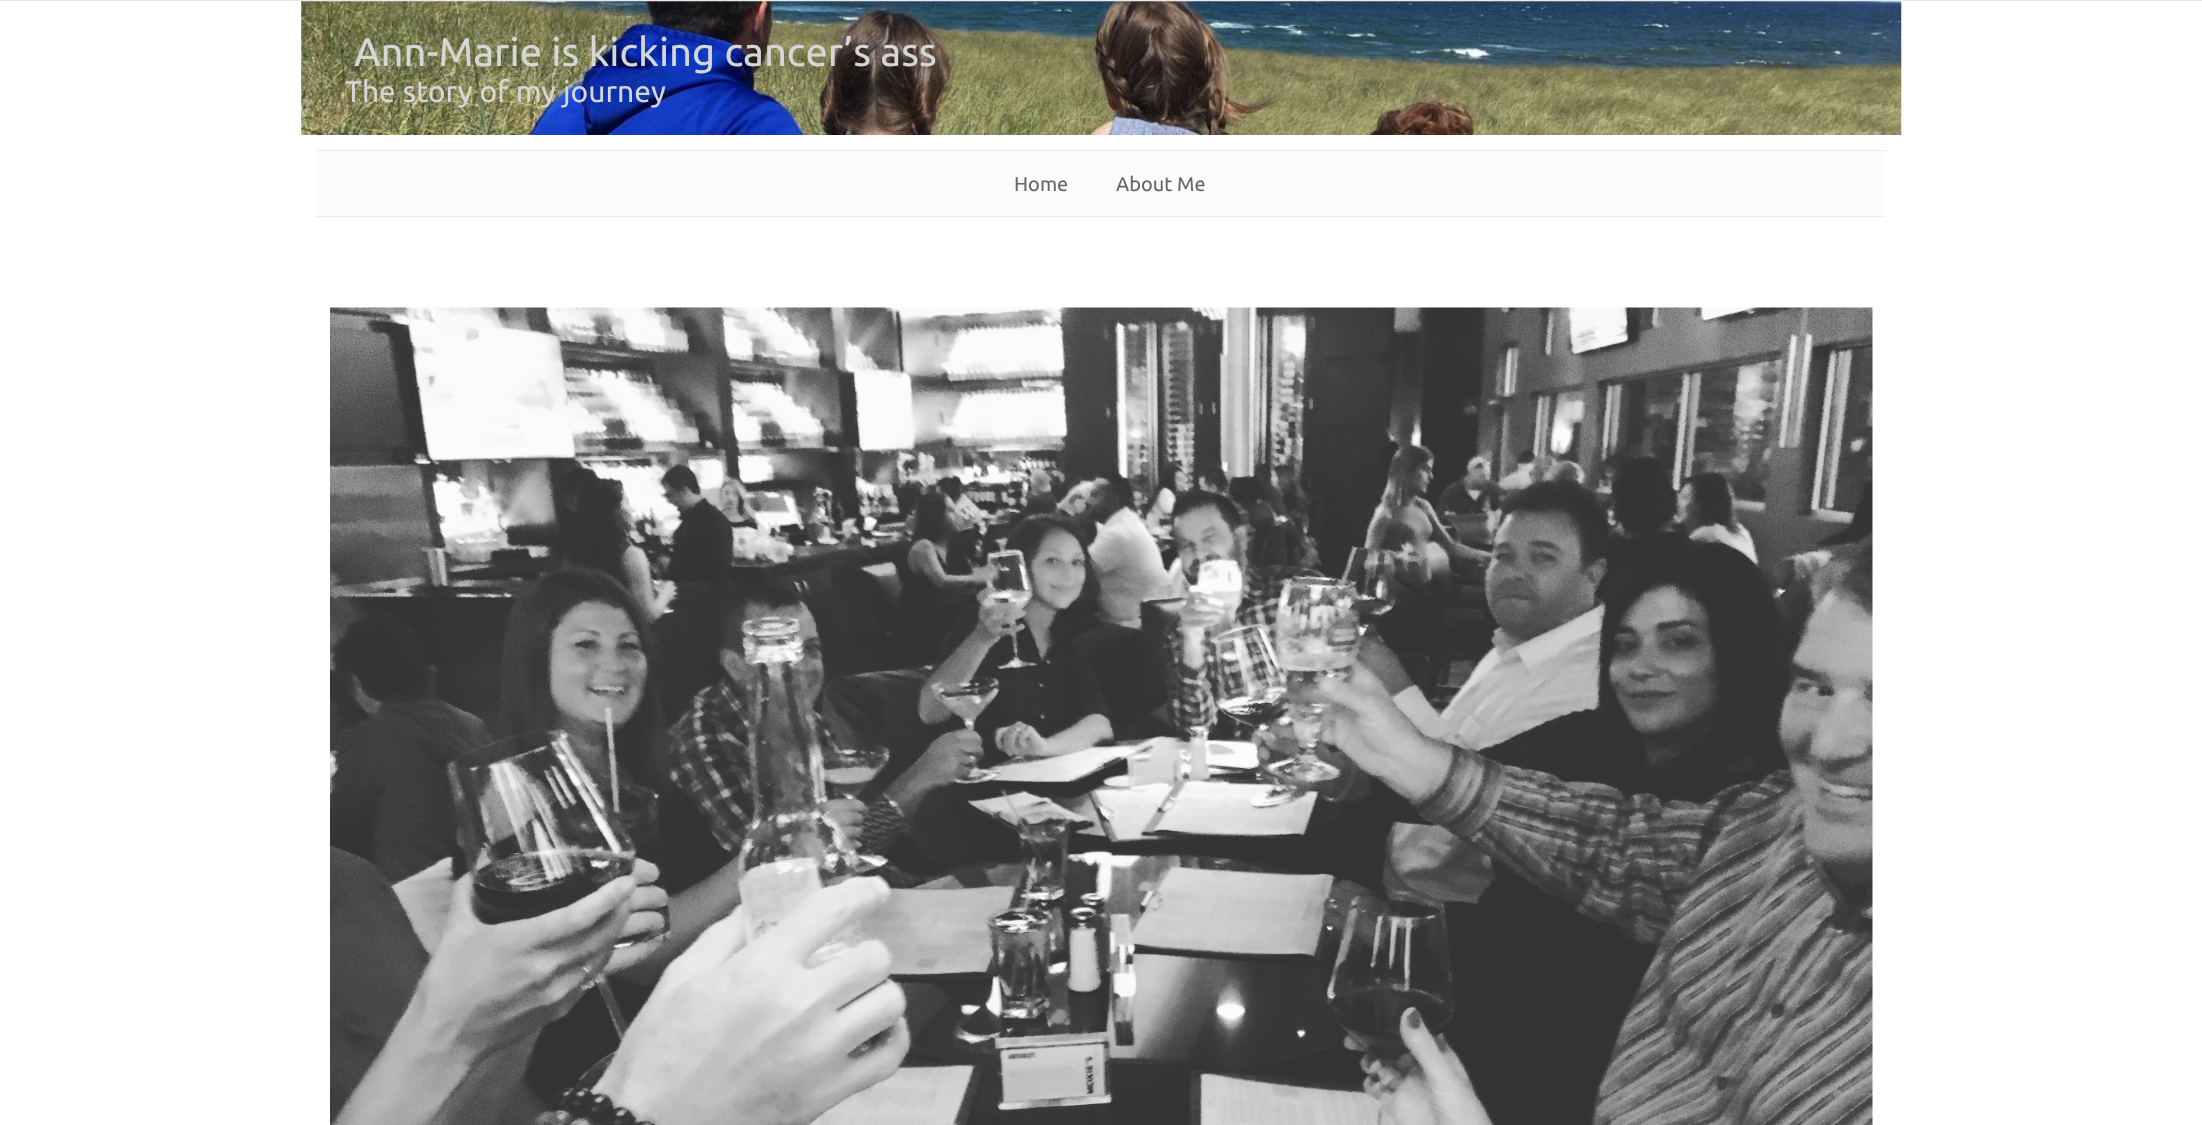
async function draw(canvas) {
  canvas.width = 2202
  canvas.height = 1125
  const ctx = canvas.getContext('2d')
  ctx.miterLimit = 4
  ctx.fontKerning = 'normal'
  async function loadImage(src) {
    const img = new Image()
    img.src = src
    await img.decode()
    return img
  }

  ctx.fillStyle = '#eaeaea'
  ctx.fillRect(0, 0, 2202, 1125)
  ctx.fillStyle = '#fff'
  ctx.fillRect(0, 1, 2202, 1124)
  ctx.drawImage(await loadImage('image0.png'), 301, 1, 1601, 134)
  ctx.font = '40px Ubuntu'
  ctx.fillStyle = '#d6d6d6'
  ctx.fillText('Ann-Marie is kicking cancer’s ass', 354, 66)
  ctx.font = '30px Ubuntu'
  ctx.fillText('The story of my journey', 345, 102)
  ctx.fillStyle = '#fcfcfc'
  ctx.fillRect(316, 151, 1570, 67)
  ctx.fillStyle = '#ededed'
  ctx.fillRect(316, 150, 1570, 1)
  ctx.fillRect(316, 216, 1570, 1)
  ctx.font = '20px Ubuntu'
  ctx.fillStyle = '#666'
  ctx.fillText('Home', 1014, 191)
  ctx.fillText('About Me', 1116, 191)
  ctx.drawImage(await loadImage('image1.png'), 330, 307, 1543, 818)
}

draw(document.querySelector('canvas'))
